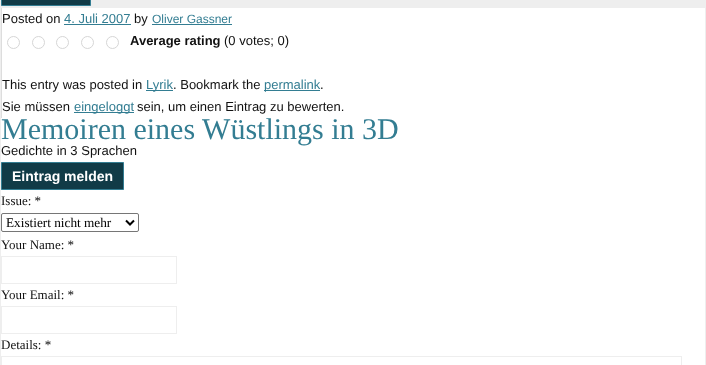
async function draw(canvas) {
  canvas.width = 706
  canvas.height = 365
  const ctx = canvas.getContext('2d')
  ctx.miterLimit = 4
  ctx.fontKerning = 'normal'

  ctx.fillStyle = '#fff'
  ctx.fillRect(0, 0, 706, 365)
  ctx.fillStyle = '#eee'
  ctx.fillRect(0, 0, 706, 7)
  ctx.fillStyle = '#113b47'
  ctx.beginPath()
  ctx.rect(1.5, -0.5, 89, 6)
  ctx.fill()
  ctx.strokeStyle = '#337d92'
  ctx.stroke()
  ctx.strokeStyle = '#eee'
  ctx.strokeRect(0.5, 7.5, 705, 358)
  ctx.fillStyle = '#ddd'
  ctx.fillRect(1, 8, 1, 110)
  ctx.font = '13px Liberation Sans'
  ctx.fillStyle = '#111'
  ctx.fillText('Posted on', 2, 23)
  ctx.fillStyle = '#337d92'
  ctx.fillText('4. Juli 2007', 64, 23)
  ctx.fillRect(64, 24, 67, 1)
  ctx.fillStyle = '#111'
  ctx.fillText('by', 134, 23)
  ctx.font = '12px Liberation Sans'
  ctx.fillStyle = '#337d92'
  ctx.fillText('Oliver Gassner', 152, 23)
  ctx.fillRect(152, 24, 80, 1)
  ctx.beginPath()
  ctx.arc(13.5, 42.5, 6, 0, 2 * Math.PI)
  ctx.strokeStyle = '#d6d6d6'
  ctx.stroke()
  ctx.beginPath()
  ctx.arc(38.5, 42.5, 6, 0, 2 * Math.PI)
  ctx.stroke()
  ctx.beginPath()
  ctx.arc(62.5, 42.5, 6, 0, 2 * Math.PI)
  ctx.stroke()
  ctx.beginPath()
  ctx.arc(87.5, 42.5, 6, 0, 2 * Math.PI)
  ctx.stroke()
  ctx.beginPath()
  ctx.arc(112.5, 42.5, 6, 0, 2 * Math.PI)
  ctx.stroke()
  ctx.font = 'bold 13px Liberation Sans'
  ctx.fillStyle = '#111'
  ctx.fillText('Average rating', 130, 45)
  ctx.font = '13px Liberation Sans'
  ctx.fillText('(0 votes; 0)', 224, 45)
  ctx.fillText('This entry was posted in', 2, 89)
  ctx.fillStyle = '#337d92'
  ctx.fillRect(146, 90, 27, 1)
  ctx.fillText('Lyrik', 146, 89)
  ctx.fillStyle = '#111'
  ctx.fillText('. Bookmark the', 173, 89)
  ctx.fillStyle = '#337d92'
  ctx.fillRect(264, 90, 56, 1)
  ctx.fillText('permalink', 264, 89)
  ctx.fillStyle = '#111'
  ctx.fillText('.', 320, 89)
  ctx.fillText('Sie müssen', 2, 111)
  ctx.fillStyle = '#337d92'
  ctx.fillRect(74, 112, 60, 1)
  ctx.fillText('eingeloggt', 74, 111)
  ctx.fillStyle = '#111'
  ctx.fillText('sein, um einen Eintrag zu bewerten.', 137, 111)
  ctx.font = '30px Liberation Serif'
  ctx.fillStyle = '#337d92'
  ctx.fillText('Memoiren eines Wüstlings in 3D', 1, 139)
  ctx.font = '13px Liberation Sans'
  ctx.fillStyle = '#111'
  ctx.fillText('Gedichte in 3 Sprachen', 1, 155)
  ctx.fillStyle = '#113b47'
  ctx.beginPath()
  ctx.rect(1.5, 162.5, 122, 27)
  ctx.fill()
  ctx.strokeStyle = '#337d92'
  ctx.stroke()
  ctx.font = 'bold 14px Liberation Sans'
  ctx.fillStyle = '#fff'
  ctx.fillText('Eintrag melden', 12, 181)
  ctx.font = '13px Liberation Serif'
  ctx.fillStyle = '#111'
  ctx.fillText('Issue: *', 1, 205)
  ctx.beginPath()
  ctx.roundRect(1.5, 213.5, 137, 18, 1.5)
  ctx.strokeStyle = '#767676'
  ctx.stroke()
  ctx.beginPath()
  ctx.moveTo(126, 220.5)
  ctx.lineTo(130, 224.5)
  ctx.lineTo(134, 220.5)
  ctx.strokeStyle = '#000'
  ctx.lineWidth = 2
  ctx.stroke()
  ctx.font = '13.25px Liberation Serif'
  ctx.fillStyle = '#000'
  ctx.fillText('Existiert nicht mehr', 6, 227)
  ctx.font = '13px Liberation Serif'
  ctx.fillStyle = '#111'
  ctx.fillText('Your Name: *', 1, 249)
  ctx.strokeStyle = '#eee'
  ctx.lineWidth = 1
  ctx.strokeRect(1.5, 256.5, 175, 27)
  ctx.fillText('Your Email: *', 1, 299)
  ctx.strokeRect(1.5, 306.5, 175, 27)
  ctx.fillText('Details: *', 1, 349)
  ctx.strokeRect(1.5, 356.5, 680, 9)
}

draw(document.querySelector('canvas'))
